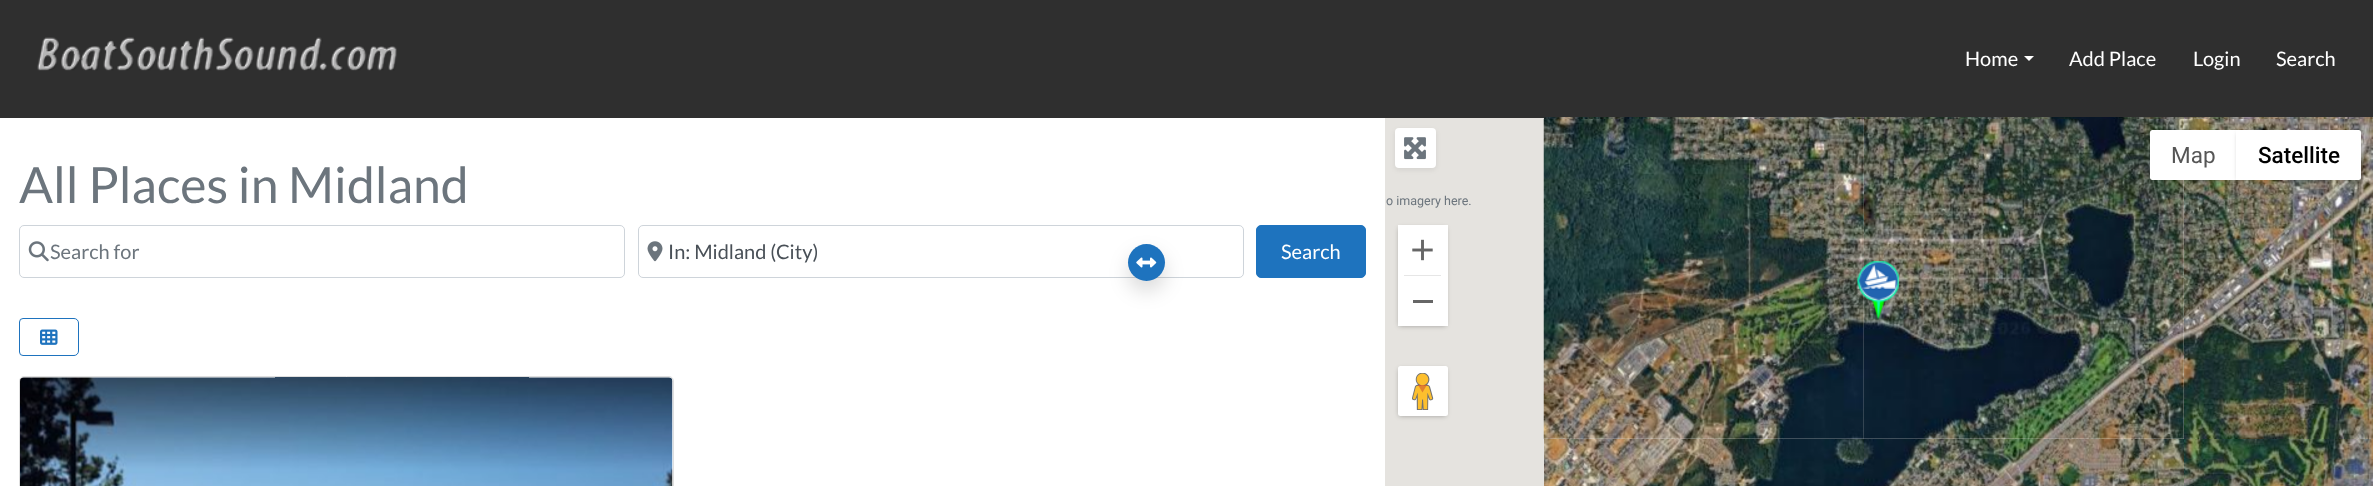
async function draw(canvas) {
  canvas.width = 2373
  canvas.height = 486
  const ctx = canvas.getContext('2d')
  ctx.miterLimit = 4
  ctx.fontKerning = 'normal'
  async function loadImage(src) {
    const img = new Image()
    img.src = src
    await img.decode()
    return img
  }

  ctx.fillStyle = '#fff'
  ctx.fillRect(0, 0, 2373, 486)
  ctx.fillStyle = '#2f2f2f'
  ctx.fillRect(0, 0, 2373, 118)
  ctx.drawImage(await loadImage('image0.png'), 37, 37, 360, 34)
  ctx.font = '20px Lato'
  ctx.fillStyle = '#fff'
  ctx.fillText('Home', 1965, 66)
  ctx.beginPath()
  ctx.moveTo(2024, 56)
  ctx.lineTo(2034, 56)
  ctx.lineTo(2029, 61)
  ctx.closePath()
  ctx.fill()
  ctx.fillText('Add Place', 2069, 66)
  ctx.fillText('Login', 2193, 66)
  ctx.fillText('Search', 2276, 66)
  ctx.font = '50px Lato'
  ctx.fillStyle = '#6c757d'
  ctx.fillText('All Places in Midland', 19, 203)
  ctx.beginPath()
  ctx.roundRect(638.5, 225.5, 605, 52, 4.5)
  ctx.strokeStyle = '#ced4da'
  ctx.stroke()
  ctx.fillStyle = '#00000026'
  ctx.filter = 'blur(10px)'
  ctx.beginPath()
  ctx.roundRect(1128, 254, 37, 37, 18.5)
  ctx.fill()
  ctx.filter = 'none'
  ctx.fillStyle = '#1e73be'
  ctx.beginPath()
  ctx.arc(1146.5, 262.5, 18.5, 0, 2 * Math.PI)
  ctx.fill()
  ctx.drawImage(await loadImage('image1.png'), 1136, 257, 21, 11)
  ctx.beginPath()
  ctx.roundRect(19.5, 225.5, 605, 52, 4.5)
  ctx.stroke()
  ctx.drawImage(await loadImage('image2.png'), 28, 241, 21, 21)
  ctx.font = '20px Lato'
  ctx.fillStyle = '#6c757d'
  ctx.fillText('Search for', 50, 259)
  ctx.drawImage(await loadImage('image3.png'), 647, 241, 16, 21)
  ctx.fillStyle = '#495057'
  ctx.fillText('In: Midland (City)', 668, 259)
  ctx.fillStyle = '#1e73be'
  ctx.beginPath()
  ctx.roundRect(1256.5, 225.5, 109, 52, 4.5)
  ctx.fill()
  ctx.strokeStyle = '#1e73be'
  ctx.stroke()
  ctx.fillStyle = '#fff'
  ctx.fillText('Search', 1281, 259)
  ctx.beginPath()
  ctx.roundRect(19.5, 318.5, 59, 37, [3.5, 4.5, 4.5, 3.5])
  ctx.stroke()
  ctx.drawImage(await loadImage('image4.png'), 40, 329, 18, 16)
  ctx.beginPath()
  ctx.roundRect(19.5, 376.5, 654, 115, 4.5)
  ctx.strokeStyle = '#dfdfdf'
  ctx.stroke()
  ctx.drawImage(await loadImage('image5.png'), 20, 377, 653, 109)
  ctx.fillStyle = '#e5e3df'
  ctx.fillRect(1385, 118, 799, 368)
  ctx.fillStyle = '#00000012'
  ctx.filter = 'blur(2.5px)'
  ctx.beginPath()
  ctx.roundRect(1395, 130, 41, 40, 4)
  ctx.fill()
  ctx.filter = 'none'
  ctx.fillStyle = '#fff'
  ctx.beginPath()
  ctx.roundRect(1395, 128, 41, 40, 4)
  ctx.fill()
  ctx.drawImage(await loadImage('image6.png'), 1404, 137, 22, 23)
  ctx.drawImage(await loadImage('image11.png'), 1863, 119, 321, 320)
  ctx.drawImage(await loadImage('image12.png'), 2184, 119, 189, 320)
  ctx.fillStyle = '#0000004d'
  ctx.filter = 'blur(2.5px)'
  ctx.beginPath()
  ctx.roundRect(2151, 133, 84, 47, 1)
  ctx.fill()
  ctx.filter = 'none'
  ctx.fillStyle = '#fff'
  ctx.beginPath()
  ctx.roundRect(2150, 130, 86, 50, [2.5, 0, 0, 2.5])
  ctx.fill()
  ctx.font = '22.5px Roboto'
  ctx.fillStyle = '#565656'
  ctx.fillText('Map', 2171, 163)
  ctx.fillStyle = '#0000004d'
  ctx.filter = 'blur(2.5px)'
  ctx.beginPath()
  ctx.roundRect(2238, 133, 122, 47, 1)
  ctx.fill()
  ctx.filter = 'none'
  ctx.fillStyle = '#fff'
  ctx.beginPath()
  ctx.roundRect(2236, 130, 125, 50, [0, 2.5, 2.5, 0])
  ctx.fill()
  ctx.font = '500 22.5px Roboto'
  ctx.fillStyle = '#000'
  ctx.fillText('Satellite', 2258, 163)
  ctx.drawImage(await loadImage('image10.png'), 1543, 118, 321, 321)
  ctx.drawImage(await loadImage('image7.png'), 1544, 117, 320, 2)
  ctx.drawImage(await loadImage('image8.png'), 1864, 117, 320, 2)
  ctx.drawImage(await loadImage('image9.png'), 2184, 117, 189, 2)
  ctx.font = '12.5px Roboto'
  ctx.fillStyle = '#6c757d'
  ctx.fillText('o imagery here.', 1386, 205)
  ctx.drawImage(await loadImage('image13.png'), 1544, 439, 320, 47)
  ctx.drawImage(await loadImage('image14.png'), 1864, 439, 320, 47)
  ctx.drawImage(await loadImage('image15.png'), 2184, 439, 189, 47)
  ctx.drawImage(await loadImage('image16.png'), 1857, 261, 42, 59)
  ctx.fillStyle = '#0000004d'
  ctx.filter = 'blur(2.5px)'
  ctx.beginPath()
  ctx.roundRect(1399, 228, 47, 98, 1)
  ctx.fill()
  ctx.filter = 'none'
  ctx.fillStyle = '#fff'
  ctx.fillRect(1398, 225, 50, 101)
  ctx.drawImage(await loadImage('image17.png'), 1412, 239, 21, 22)
  ctx.fillStyle = '#e6e6e6'
  ctx.fillRect(1404, 275, 37, 1)
  ctx.fillStyle = '#666'
  ctx.fillRect(1413, 300, 20, 3)
  ctx.fillStyle = '#0000004d'
  ctx.filter = 'blur(2.5px)'
  ctx.beginPath()
  ctx.roundRect(1399, 369, 47, 47, 1)
  ctx.fill()
  ctx.filter = 'none'
  ctx.fillStyle = '#fff'
  ctx.beginPath()
  ctx.roundRect(1398, 366, 50, 50, 2.5)
  ctx.fill()
  ctx.drawImage(await loadImage('image18.png'), 1412, 373, 22, 37)
}

draw(document.querySelector('canvas'))
